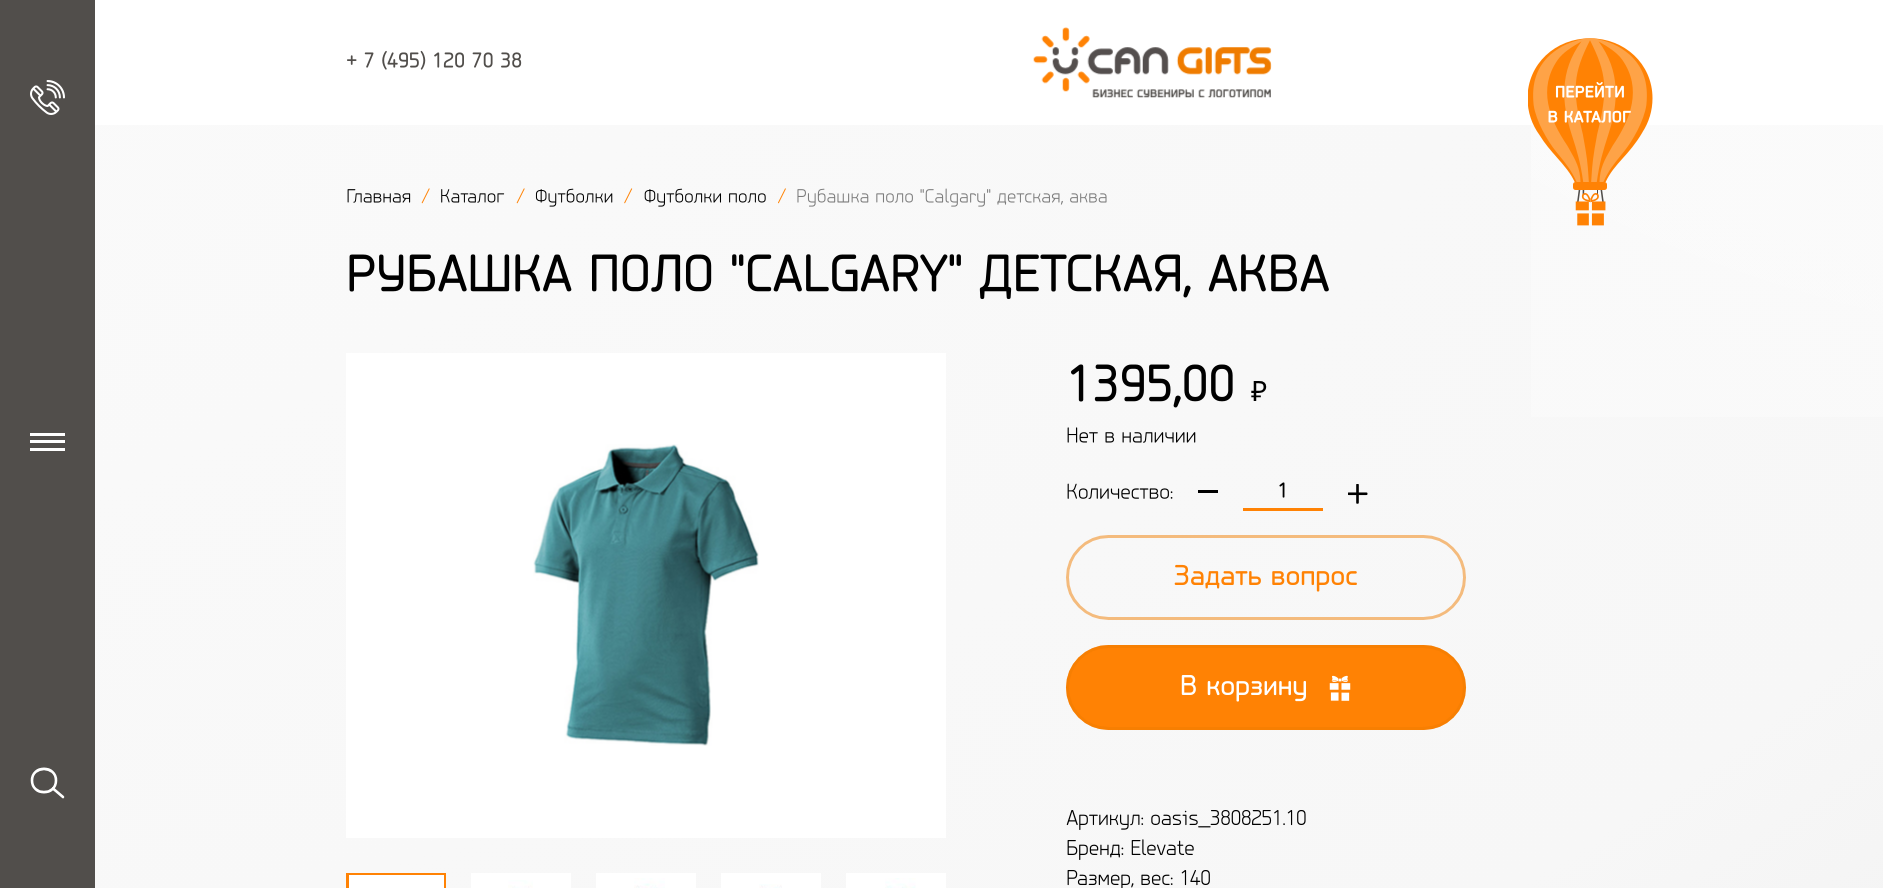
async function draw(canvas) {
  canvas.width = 1883
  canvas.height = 888
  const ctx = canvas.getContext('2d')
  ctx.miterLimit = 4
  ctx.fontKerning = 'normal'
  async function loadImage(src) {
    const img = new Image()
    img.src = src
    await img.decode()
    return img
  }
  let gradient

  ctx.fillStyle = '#fff'
  ctx.fillRect(0, 0, 1883, 888)
  gradient = ctx.createRadialGradient(-827, -293.92, 0, -827, -293.92, 4497)
  gradient.addColorStop(0, '#fbfbfb')
  gradient.addColorStop(0.69, '#f7f7f7')
  gradient.addColorStop(1, '#ebebeb')
  ctx.fillStyle = gradient
  ctx.beginPath()
  ctx.rect(95, 125, 1788, 763)
  ctx.save()
  ctx.clip()
  ctx.scale(1, 2295 / 4497)
  ctx.fillRect(0, 0, 1883, 1741)
  ctx.restore()
  gradient = ctx.createRadialGradient(2230, -648.22, 0, 2230, -648.22, 2608)
  gradient.addColorStop(0, '#ffffffa1')
  gradient.addColorStop(1, '#ffffff00')
  ctx.fillStyle = gradient
  ctx.beginPath()
  ctx.rect(1531, 125, 352, 292)
  ctx.save()
  ctx.clip()
  ctx.scale(1, 1899 / 2608)
  ctx.fillRect(0, 0, 1883, 1220)
  ctx.restore()
  ctx.fillStyle = '#514e4b'
  ctx.fillRect(0, 0, 95, 888)
  ctx.drawImage(await loadImage('image0.png'), 30, 80, 35, 35)
  ctx.fillStyle = '#fff'
  ctx.fillRect(30, 440, 35, 3)
  ctx.fillRect(30, 433, 35, 3)
  ctx.fillRect(30, 448, 35, 3)
  ctx.beginPath()
  ctx.moveTo(56, 780.5)
  ctx.bezierCurveTo(56, 796, 32, 796, 32, 780.5)
  ctx.bezierCurveTo(32, 765, 56, 765, 56, 780.5)
  ctx.closePath()
  ctx.strokeStyle = '#fff'
  ctx.lineWidth = 2.6
  ctx.stroke()
  ctx.beginPath()
  ctx.moveTo(53, 788.5)
  ctx.lineTo(63, 797)
  ctx.lineCap = 'round'
  ctx.stroke()
  ctx.drawImage(await loadImage('image1.png'), 347, 50, 175, 20)
  ctx.drawImage(await loadImage('image2.png'), 1033, 27, 239, 71)
  ctx.drawImage(await loadImage('image3.png'), 1528, 38, 125, 188)
  ctx.drawImage(await loadImage('image4.png'), 1555, 82, 69, 16)
  ctx.drawImage(await loadImage('image5.png'), 1548, 110, 83, 13)
  ctx.drawImage(await loadImage('image6.png'), 347, 189, 64, 14)
  ctx.drawImage(await loadImage('image7.png'), 421, 188, 9, 16)
  ctx.drawImage(await loadImage('image8.png'), 441, 189, 64, 14)
  ctx.drawImage(await loadImage('image9.png'), 516, 188, 9, 16)
  ctx.drawImage(await loadImage('image10.png'), 535, 188, 78, 19)
  ctx.drawImage(await loadImage('image11.png'), 624, 188, 9, 16)
  ctx.drawImage(await loadImage('image12.png'), 644, 188, 122, 19)
  ctx.drawImage(await loadImage('image13.png'), 778, 188, 8, 16)
  ctx.drawImage(await loadImage('image14.png'), 797, 188, 310, 19)
  ctx.drawImage(await loadImage('image15.png'), 349, 254, 980, 46)
  ctx.fillRect(346, 353, 600, 485)
  ctx.drawImage(await loadImage('image16.png'), 533, 444, 226, 302)
  ctx.strokeStyle = '#ff8204'
  ctx.lineWidth = 3
  ctx.strokeRect(347.5, 874.5, 97, 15)
  ctx.fillRect(349, 875, 95, 13)
  ctx.fillRect(471, 873, 100, 15)
  ctx.drawImage(await loadImage('image17.png'), 508, 880, 25, 8)
  ctx.fillRect(596, 873, 100, 15)
  ctx.drawImage(await loadImage('image18.png'), 634, 878, 31, 10)
  ctx.fillRect(721, 873, 100, 15)
  ctx.drawImage(await loadImage('image19.png'), 759, 884, 23, 4)
  ctx.fillRect(846, 873, 100, 15)
  ctx.drawImage(await loadImage('image20.png'), 885, 878, 31, 10)
  ctx.drawImage(await loadImage('image21.png'), 1071, 364, 162, 44)
  ctx.font = '28px Noto Sans'
  ctx.fillStyle = '#000'
  ctx.fillText('₽', 1251, 401)
  ctx.drawImage(await loadImage('image22.png'), 1067, 427, 129, 16)
  ctx.drawImage(await loadImage('image23.png'), 1067, 483, 106, 16)
  ctx.fillRect(1198, 490, 20, 3)
  ctx.fillStyle = '#ff8204'
  ctx.fillRect(1243, 508, 80, 3)
  ctx.drawImage(await loadImage('image24.png'), 1279, 482, 6, 16)
  ctx.drawImage(await loadImage('image25.png'), 1348, 484, 20, 20)
  ctx.beginPath()
  ctx.roundRect(1067.5, 536.5, 397, 82, 41)
  ctx.strokeStyle = '#f4bb7d'
  ctx.stroke()
  ctx.drawImage(await loadImage('image26.png'), 1174, 564, 183, 28)
  ctx.beginPath()
  ctx.roundRect(1066, 645, 400, 85, 42.5)
  ctx.fill()
  ctx.beginPath()
  ctx.roundRect(1067.5, 646.5, 397, 82, 41)
  ctx.strokeStyle = '#ef7c0080'
  ctx.stroke()
  ctx.drawImage(await loadImage('image27.png'), 1181, 675, 125, 27)
  ctx.drawImage(await loadImage('image28.png'), 1329, 675, 22, 26)
  ctx.drawImage(await loadImage('image29.png'), 1066, 810, 240, 20)
  ctx.drawImage(await loadImage('image30.png'), 1067, 839, 127, 21)
  ctx.drawImage(await loadImage('image31.png'), 1067, 870, 143, 18)
}

draw(document.querySelector('canvas'))
